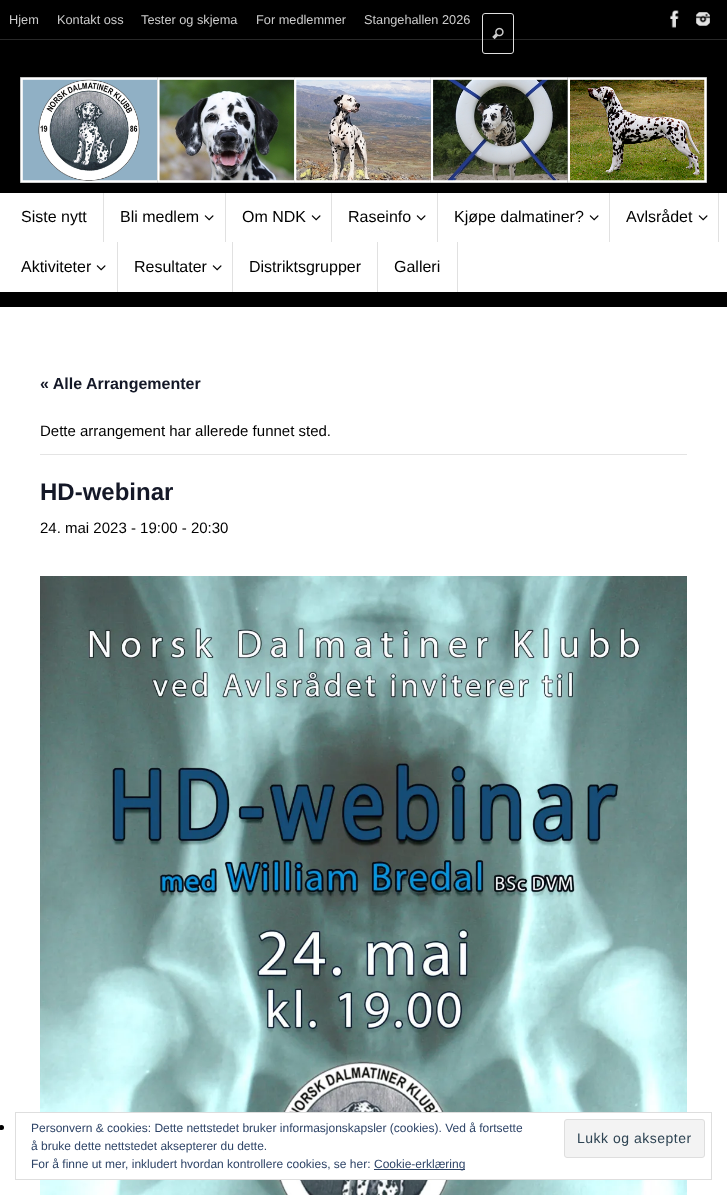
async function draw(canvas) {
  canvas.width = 727
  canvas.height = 1195
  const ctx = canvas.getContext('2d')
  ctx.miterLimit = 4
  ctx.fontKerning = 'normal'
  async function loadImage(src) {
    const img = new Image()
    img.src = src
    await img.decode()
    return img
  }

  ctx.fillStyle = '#000'
  ctx.fillRect(0, 0, 727, 1195)
  ctx.fillStyle = '#282828'
  ctx.fillRect(0, 39, 727, 1)
  ctx.font = '12.75px Liberation Sans'
  ctx.fillStyle = '#ccc'
  ctx.fillText('Hjem', 9, 24)
  ctx.fillText('Kontakt oss', 57, 24)
  ctx.fillText('Tester og skjema', 141, 24)
  ctx.fillText('For medlemmer', 256, 24)
  ctx.fillText('Stangehallen 2026', 364, 24)
  ctx.beginPath()
  ctx.roundRect(482.5, 13.5, 31, 40, 2.5)
  ctx.strokeStyle = '#e0e0e0'
  ctx.stroke()
  ctx.drawImage(await loadImage('image0.png'), 492, 27, 12, 13)
  ctx.drawImage(await loadImage('image1.png'), 670, 10, 9, 18)
  ctx.drawImage(await loadImage('image2.png'), 696, 12, 14, 14)
  ctx.drawImage(await loadImage('image3.png'), 20, 77, 687, 106)
  ctx.fillStyle = '#fff'
  ctx.fillRect(0, 193, 727, 99)
  ctx.fillStyle = '#e1e1e1'
  ctx.fillRect(103, 193, 1, 49)
  ctx.font = '16px Liberation Sans'
  ctx.fillStyle = '#000'
  ctx.fillText('Siste nytt', 21, 222)
  ctx.fillStyle = '#e1e1e1'
  ctx.fillRect(225, 193, 1, 49)
  ctx.fillStyle = '#000'
  ctx.fillText('Bli medlem', 120, 222)
  ctx.drawImage(await loadImage('image4.png'), 204, 215, 10, 6)
  ctx.fillStyle = '#e1e1e1'
  ctx.fillRect(331, 193, 1, 49)
  ctx.fillStyle = '#000'
  ctx.fillText('Om NDK', 242, 222)
  ctx.drawImage(await loadImage('image4.png'), 311, 215, 10, 6)
  ctx.fillStyle = '#e1e1e1'
  ctx.fillRect(437, 193, 1, 49)
  ctx.fillStyle = '#000'
  ctx.fillText('Raseinfo', 348, 222)
  ctx.drawImage(await loadImage('image4.png'), 416, 215, 10, 6)
  ctx.fillStyle = '#e1e1e1'
  ctx.fillRect(609, 193, 1, 49)
  ctx.fillStyle = '#000'
  ctx.fillText('Kjøpe dalmatiner?', 454, 222)
  ctx.drawImage(await loadImage('image4.png'), 589, 215, 10, 6)
  ctx.fillStyle = '#e1e1e1'
  ctx.fillRect(718, 193, 1, 49)
  ctx.fillStyle = '#000'
  ctx.fillText('Avlsrådet', 626, 222)
  ctx.drawImage(await loadImage('image4.png'), 698, 215, 10, 6)
  ctx.fillStyle = '#e1e1e1'
  ctx.fillRect(117, 242, 1, 50)
  ctx.fillStyle = '#000'
  ctx.fillText('Aktiviteter', 21, 272)
  ctx.drawImage(await loadImage('image4.png'), 96, 265, 10, 6)
  ctx.fillStyle = '#e1e1e1'
  ctx.fillRect(232, 242, 1, 50)
  ctx.fillStyle = '#000'
  ctx.fillText('Resultater', 134, 272)
  ctx.drawImage(await loadImage('image4.png'), 212, 265, 10, 6)
  ctx.fillStyle = '#e1e1e1'
  ctx.fillRect(377, 242, 1, 50)
  ctx.fillStyle = '#000'
  ctx.fillText('Distriktsgrupper', 249, 272)
  ctx.fillStyle = '#e1e1e1'
  ctx.fillRect(457, 242, 1, 50)
  ctx.fillStyle = '#000'
  ctx.fillText('Galleri', 394, 272)
  ctx.fillStyle = '#fff'
  ctx.fillRect(0, 307, 727, 888)
  ctx.font = 'bold 16px Liberation Sans'
  ctx.fillStyle = '#141827'
  ctx.fillText('« Alle Arrangementer', 40, 389)
  ctx.fillStyle = '#e4e4e4'
  ctx.fillRect(40, 454, 647, 1)
  ctx.font = '15px Liberation Sans'
  ctx.fillStyle = '#000'
  ctx.fillText('Dette arrangement har allerede funnet sted.', 40, 436)
  ctx.font = 'bold 24px Liberation Sans'
  ctx.fillStyle = '#141827'
  ctx.fillText('HD-webinar', 40, 500)
  ctx.font = '15px Liberation Sans'
  ctx.fillStyle = '#000'
  ctx.fillText('24. mai 2023 - 19:00 - 20:30', 40, 533)
  ctx.drawImage(await loadImage('image5.png'), 40, 576, 647, 619)
  ctx.beginPath()
  ctx.arc(1.5, 1127.5, 2.5, 0, 2 * Math.PI)
  ctx.fill()
  ctx.fillStyle = '#fff'
  ctx.fillRect(40, 1113, 647, 66)
  ctx.strokeStyle = '#dedede'
  ctx.strokeRect(15.5, 1112.5, 696, 67)
  ctx.font = '12px Liberation Sans'
  ctx.fillStyle = '#2e4467'
  ctx.fillText('Personvern & cookies: Dette nettstedet bruker informasjonskapsler (cookies). Ved å fortsette', 31, 1132)
  ctx.fillText('å bruke dette nettstedet aksepterer du dette.', 31, 1150)
  ctx.fillStyle = '#f3f3f3'
  ctx.beginPath()
  ctx.roundRect(564.5, 1119.5, 140, 38, 2.5)
  ctx.fill()
  ctx.stroke()
  ctx.letterSpacing = '0.5px'
  ctx.font = '14px Liberation Sans'
  ctx.fillStyle = '#2e4453'
  ctx.fillText('Lukk og aksepter', 577, 1143)
  ctx.letterSpacing = '0px'
  ctx.font = '12px Liberation Sans'
  ctx.fillStyle = '#2e4467'
  ctx.fillText('For å finne ut mer, inkludert hvordan kontrollere cookies, se her:', 31, 1168)
  ctx.fillRect(374, 1169, 91, 1)
  ctx.fillText('Cookie-erklæring', 374, 1168)
}

draw(document.querySelector('canvas'))
